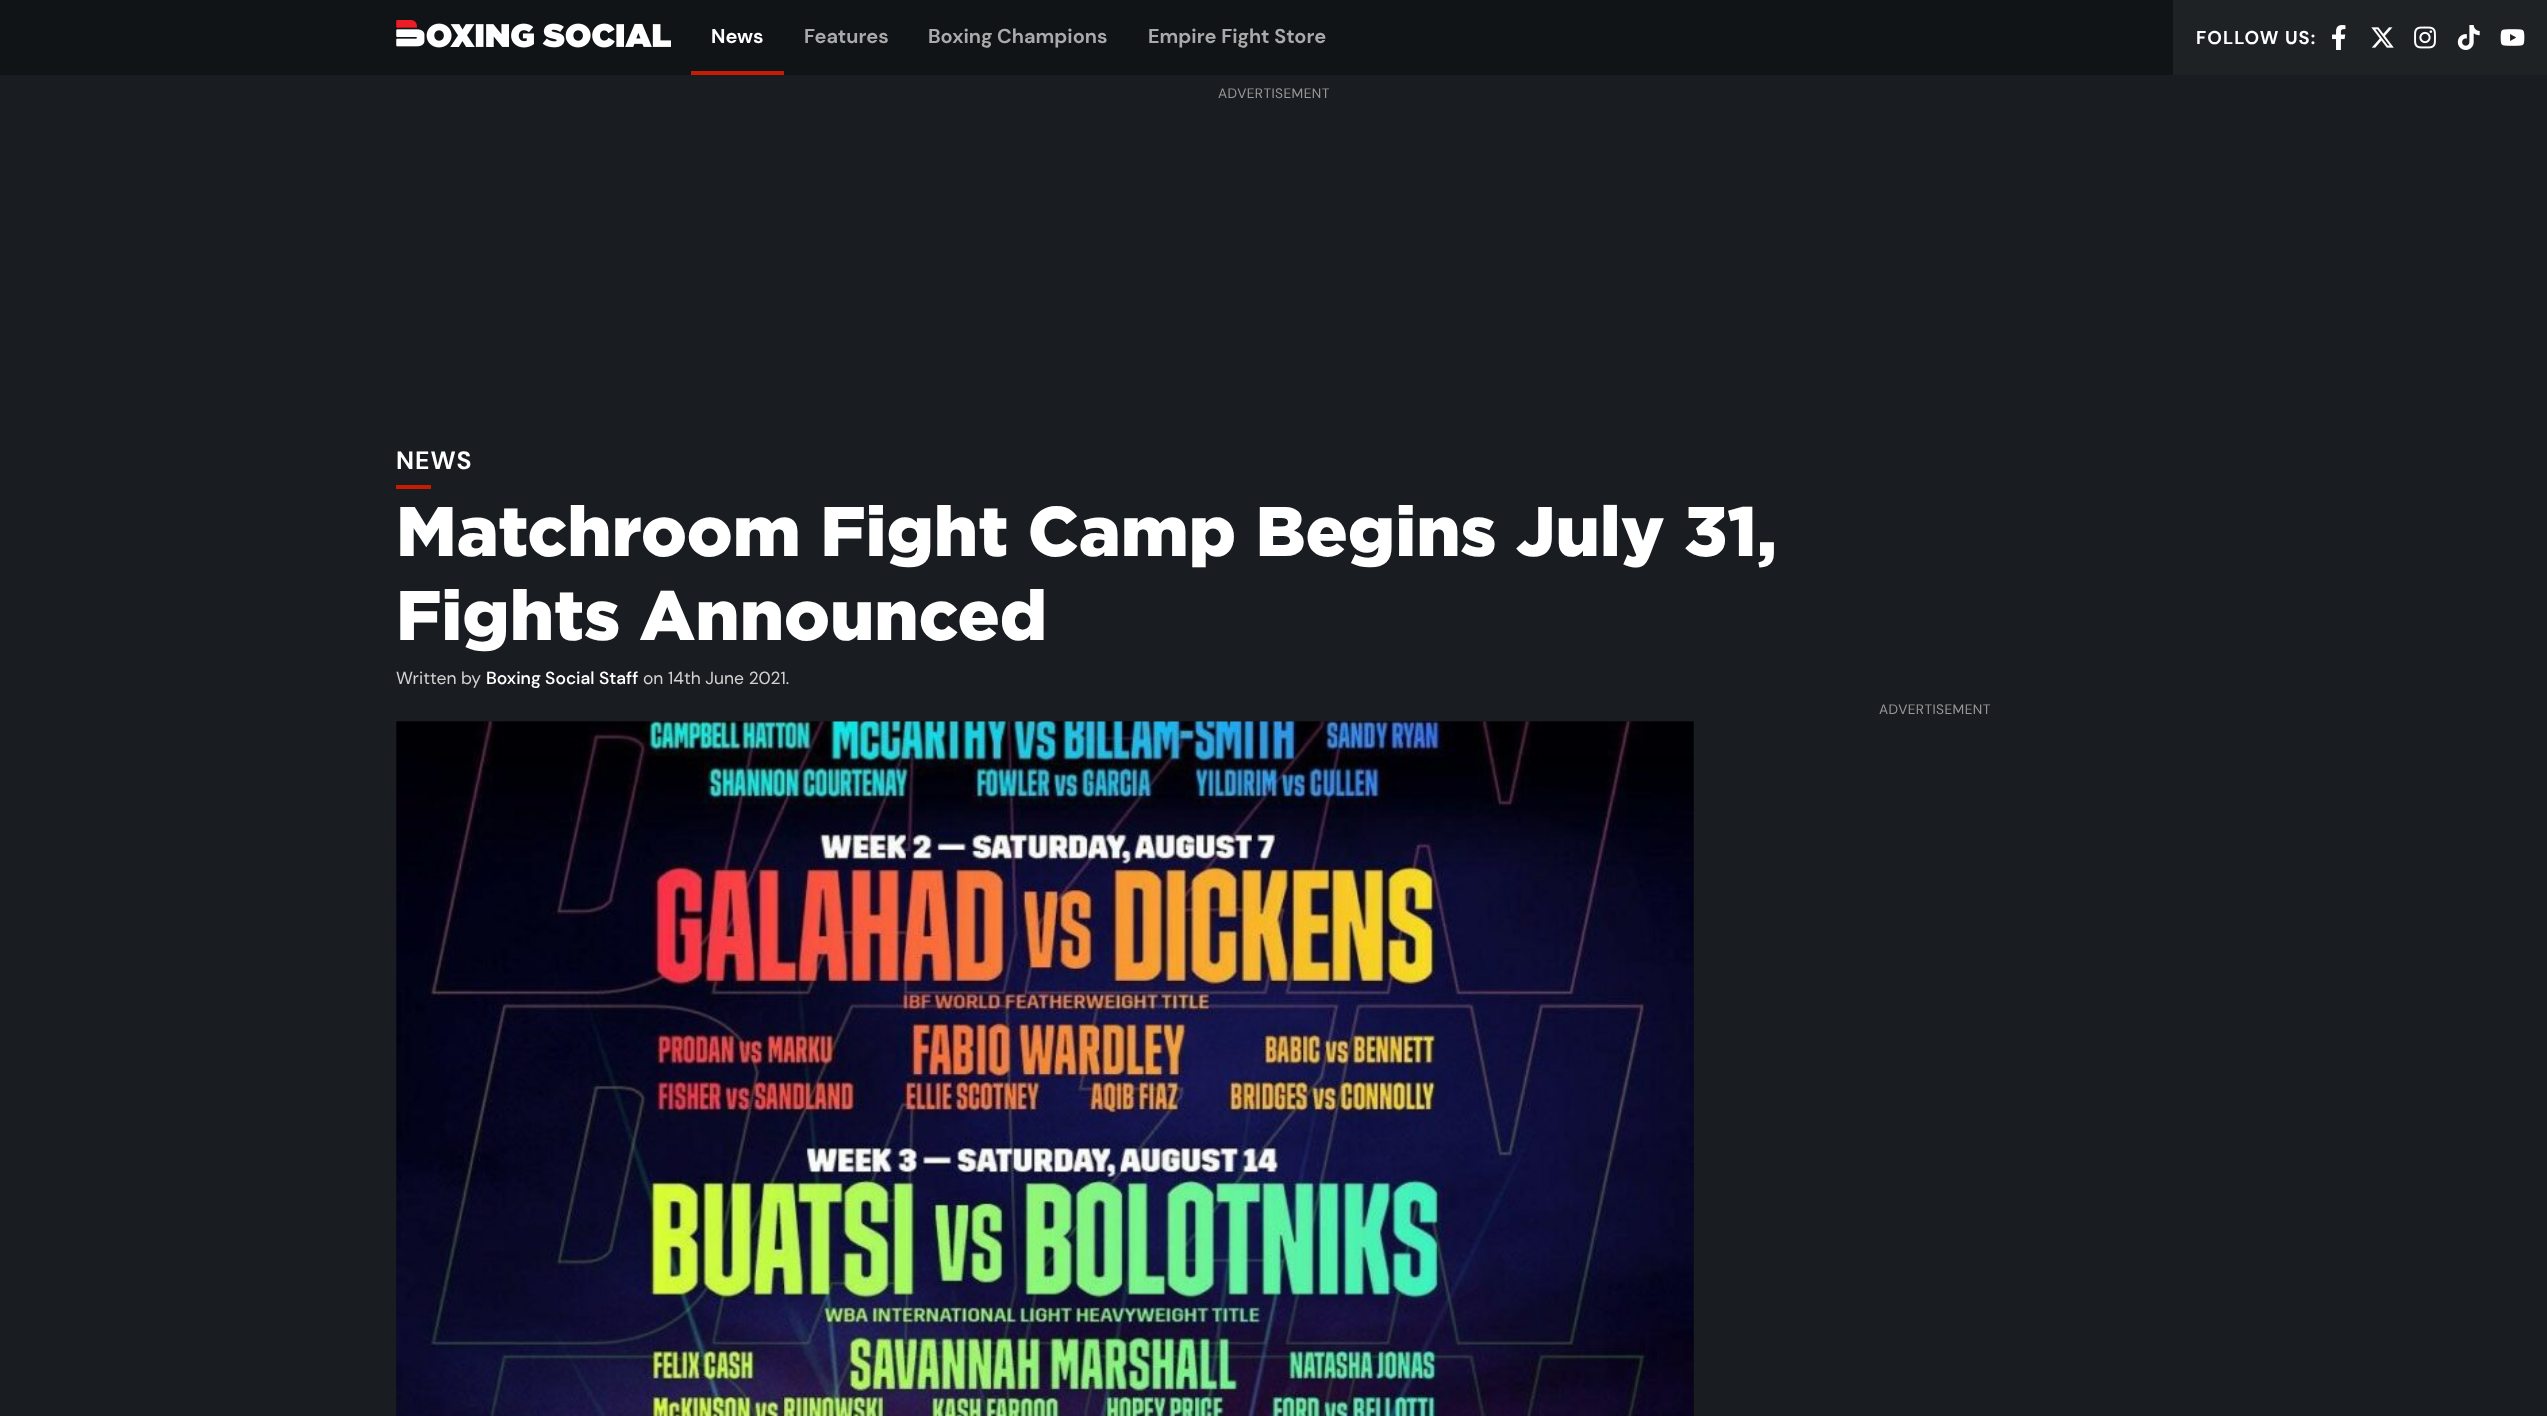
async function draw(canvas) {
  canvas.width = 2547
  canvas.height = 1416
  const ctx = canvas.getContext('2d')
  ctx.miterLimit = 4
  ctx.fontKerning = 'normal'
  async function loadImage(src) {
    const img = new Image()
    img.src = src
    await img.decode()
    return img
  }

  ctx.fillStyle = '#191c20'
  ctx.fillRect(0, 0, 2547, 1416)
  ctx.fillStyle = '#111417'
  ctx.fillRect(0, 0, 2173, 75)
  ctx.drawImage(await loadImage('image0.png'), 396, 20, 275, 28)
  ctx.fillStyle = '#c61c04'
  ctx.fillRect(691, 71, 93, 4)
  ctx.font = 'bold 20px DM Sans'
  ctx.fillStyle = '#fff'
  ctx.fillText('News', 711, 43)
  ctx.fillStyle = '#aaa'
  ctx.fillText('Features', 804, 43)
  ctx.fillText('Boxing Champions', 928, 43)
  ctx.fillText('Empire Fight Store', 1148, 43)
  ctx.fillStyle = '#1f2225'
  ctx.fillRect(2173, 0, 374, 75)
  ctx.letterSpacing = '1.1px'
  ctx.font = 'bold 18.5px DM Sans'
  ctx.fillStyle = '#fff'
  ctx.fillText('FOLLOW US:', 2196, 44)
  ctx.drawImage(await loadImage('image1.png'), 2332, 25, 14, 25)
  ctx.drawImage(await loadImage('image2.png'), 2371, 27, 23, 21)
  ctx.drawImage(await loadImage('image3.png'), 2414, 26, 22, 23)
  ctx.drawImage(await loadImage('image4.png'), 2457, 25, 23, 25)
  ctx.drawImage(await loadImage('image5.png'), 2500, 29, 25, 17)
  ctx.letterSpacing = '0.4px'
  ctx.font = '13.75px DM Sans'
  ctx.fillStyle = '#999'
  ctx.fillText('ADVERTISEMENT', 1218, 98)
  ctx.letterSpacing = '1px'
  ctx.font = 'bold 25px DM Sans'
  ctx.fillStyle = '#fff'
  ctx.fillText('NEWS', 396, 469)
  ctx.fillStyle = '#c61c04'
  ctx.fillRect(396, 485, 35, 4)
  ctx.letterSpacing = '0px'
  ctx.font = '900 70px Gotham'
  ctx.fillStyle = '#fff'
  ctx.fillText('Matchroom Fight Camp Begins July 31,', 396, 556)
  ctx.fillText('Fights Announced', 396, 640)
  ctx.font = '17.5px DM Sans'
  ctx.fillStyle = '#d2d2d2'
  ctx.fillText('Written by', 396, 684)
  ctx.font = '500 17.5px DM Sans'
  ctx.fillStyle = '#fff'
  ctx.fillText('Boxing Social Staff', 486, 684)
  ctx.font = '17.5px DM Sans'
  ctx.fillStyle = '#d2d2d2'
  ctx.fillText('on 14th June 2021.', 643, 684)
  ctx.letterSpacing = '0.4px'
  ctx.font = '13.75px DM Sans'
  ctx.fillStyle = '#999'
  ctx.fillText('ADVERTISEMENT', 1879, 714)
  ctx.fillStyle = '#111417'
  ctx.fillRect(396, 721, 1298, 695)
  ctx.drawImage(await loadImage('image6.png'), 396, 721, 1298, 695)
}

draw(document.querySelector('canvas'))
